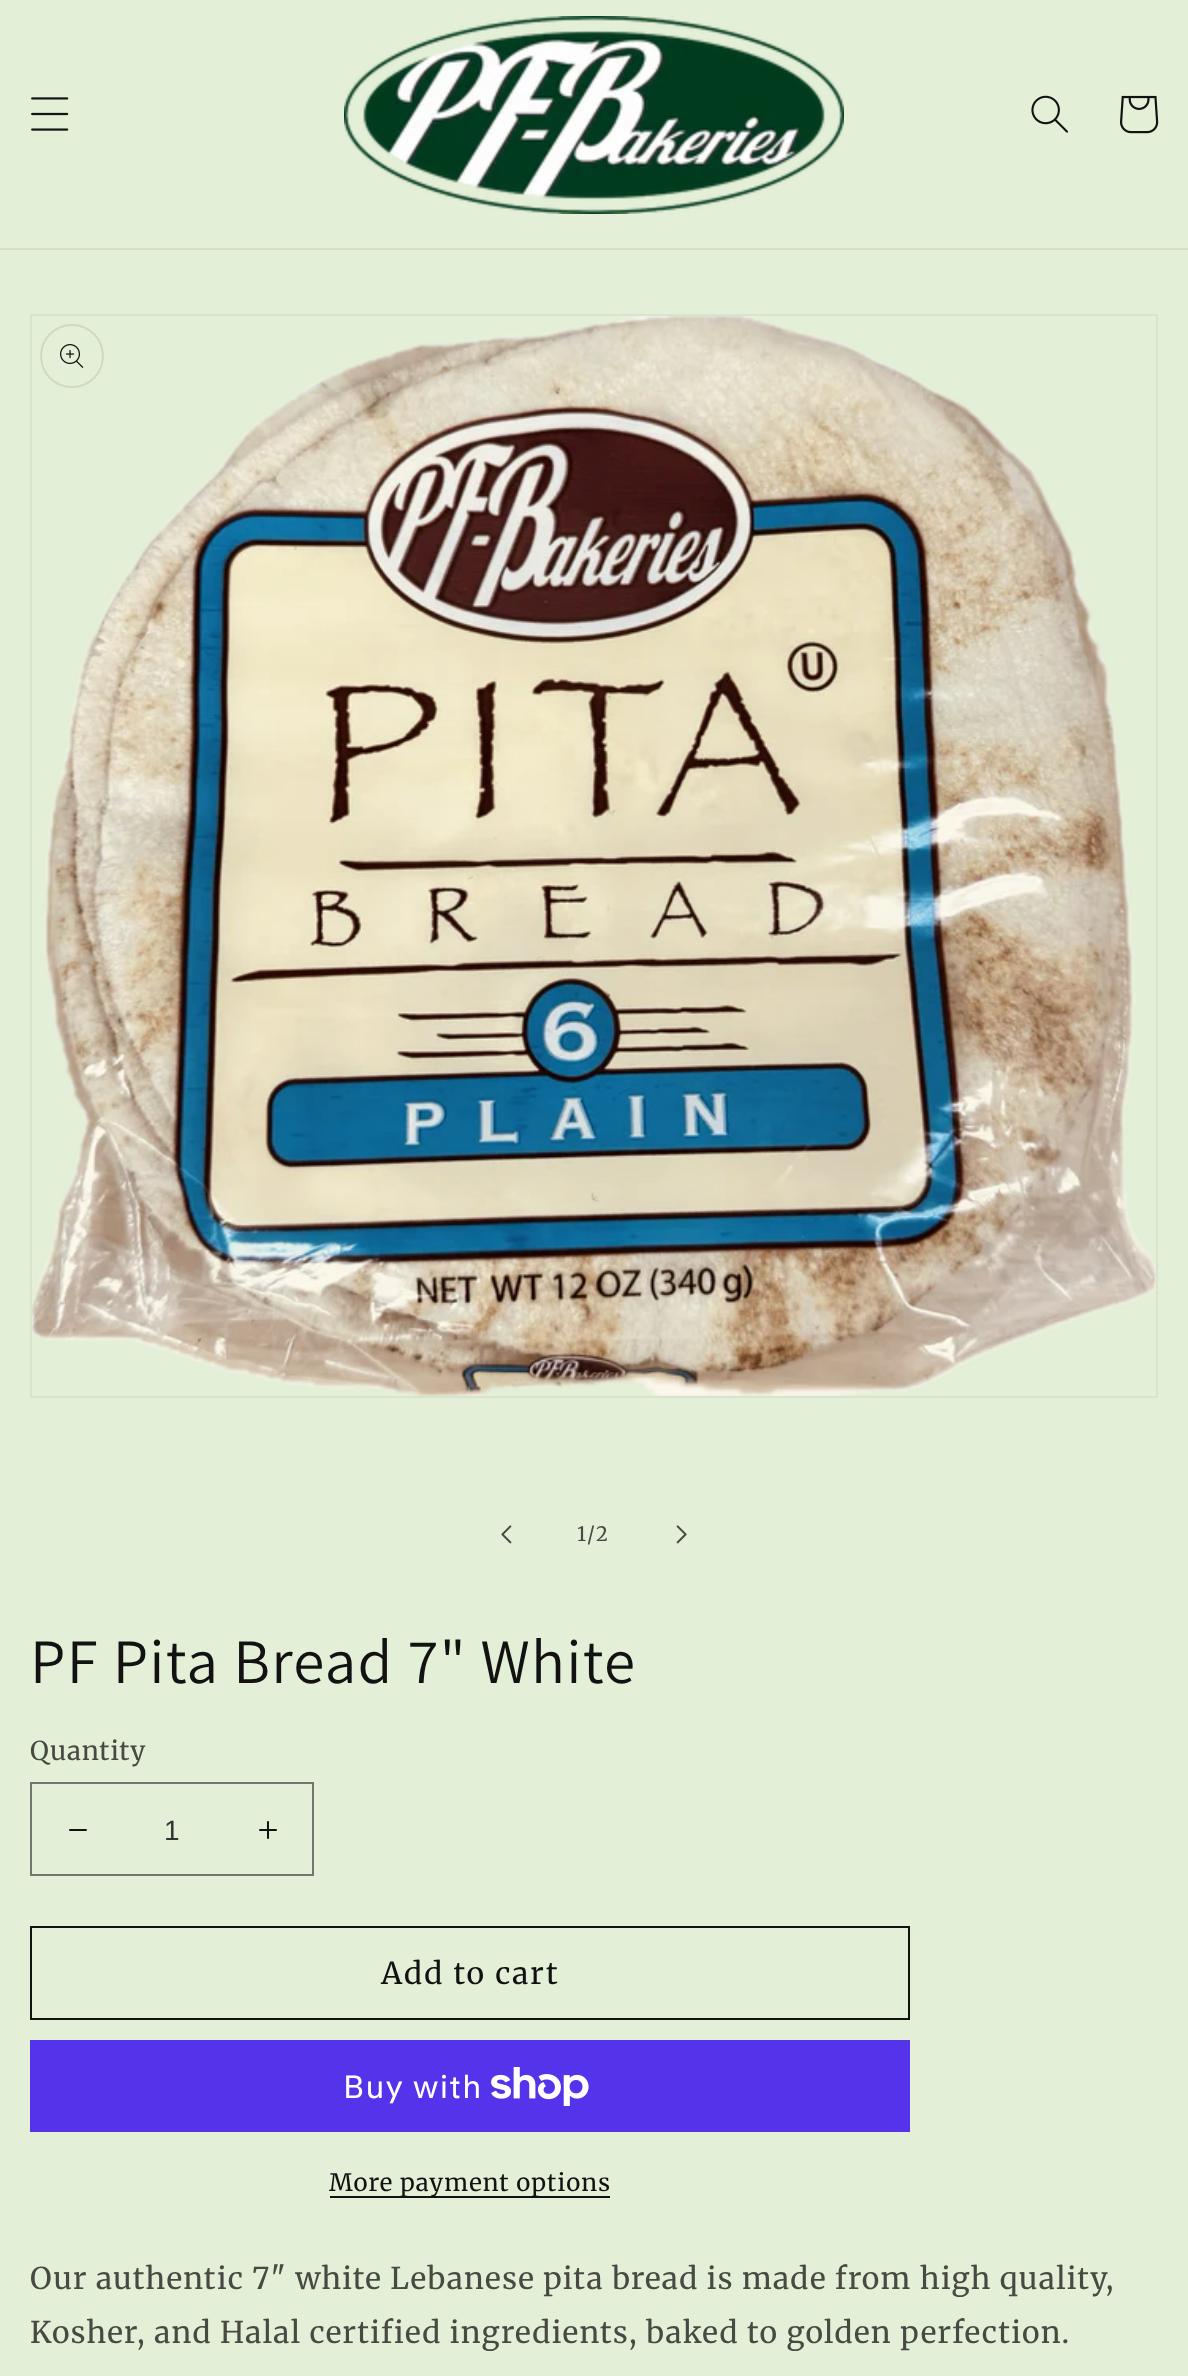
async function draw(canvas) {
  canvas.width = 1188
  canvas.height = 2376
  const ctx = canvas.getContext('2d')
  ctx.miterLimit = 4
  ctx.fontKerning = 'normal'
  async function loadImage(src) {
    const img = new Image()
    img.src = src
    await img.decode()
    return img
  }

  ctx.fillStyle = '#e4efd7'
  ctx.fillRect(0, 0, 1188, 2376)
  ctx.fillStyle = '#d3ddc7'
  ctx.fillRect(0, 248, 1188, 2)
  ctx.drawImage(await loadImage('image0.png'), 31, 97, 38, 34)
  ctx.drawImage(await loadImage('image1.png'), 344, 16, 500, 198)
  ctx.drawImage(await loadImage('image2.png'), 1031, 95, 37, 38)
  ctx.drawImage(await loadImage('image3.png'), 1120, 95, 39, 39)
  ctx.strokeStyle = '#d9e4cd'
  ctx.lineWidth = 2
  ctx.strokeRect(31, 315, 1126, 1082)
  ctx.drawImage(await loadImage('image4.png'), 32, 316, 1124, 1080)
  ctx.beginPath()
  ctx.arc(72, 356, 31, 0, 2 * Math.PI)
  ctx.strokeStyle = '#cfd9c3'
  ctx.stroke()
  ctx.drawImage(await loadImage('image5.png'), 60, 344, 24, 24)
  ctx.drawImage(await loadImage('image6.png'), 501, 1525, 11, 19)
  ctx.letterSpacing = '1.5px'
  ctx.font = '20px Merriweather'
  ctx.fillStyle = '#474943'
  ctx.fillText('1/2', 577, 1541)
  ctx.drawImage(await loadImage('image7.png'), 676, 1525, 11, 19)
  ctx.letterSpacing = '1.25px'
  ctx.font = '63px Assistant'
  ctx.fillStyle = '#121212'
  ctx.fillText('PF Pita Bread 7" White', 30, 1683)
  ctx.letterSpacing = '0.75px'
  ctx.font = '26px Merriweather'
  ctx.fillStyle = '#474943'
  ctx.fillText('Quantity', 30, 1760)
  ctx.drawImage(await loadImage('image8.png'), 69, 1829, 18, 2)
  ctx.drawImage(await loadImage('image9.png'), 259, 1821, 18, 18)
  ctx.strokeStyle = '#71756b'
  ctx.strokeRect(31, 1783, 282, 92)
  ctx.letterSpacing = '0px'
  ctx.font = '28px Liberation Sans'
  ctx.fillStyle = '#323330'
  ctx.fillText('1', 164, 1840)
  ctx.strokeStyle = '#121212'
  ctx.strokeRect(31, 1927, 878, 92)
  ctx.letterSpacing = '2px'
  ctx.font = '30px Merriweather'
  ctx.fillStyle = '#121212'
  ctx.fillText('Add to cart', 381, 1984)
  ctx.fillStyle = '#5433eb'
  ctx.fillRect(30, 2040, 880, 92)
  ctx.letterSpacing = '1.2px'
  ctx.font = '32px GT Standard'
  ctx.fillStyle = '#fff'
  ctx.fillText('Buy with', 343, 2098)
  ctx.drawImage(await loadImage('image10.png'), 491, 2067, 98, 39)
  ctx.fillStyle = '#121212'
  ctx.fillRect(330, 2196, 280, 2)
  ctx.letterSpacing = '1px'
  ctx.font = '24px Merriweather'
  ctx.fillText('More payment options', 329, 2191)
  ctx.letterSpacing = '1.2px'
  ctx.font = '30px Merriweather'
  ctx.fillStyle = '#474943'
  ctx.fillText('Our authentic 7" white Lebanese pita bread is made from high quality,', 30, 2289)
  ctx.fillText('Kosher, and Halal certified ingredients, baked to golden perfection.', 30, 2343)
}

draw(document.querySelector('canvas'))
